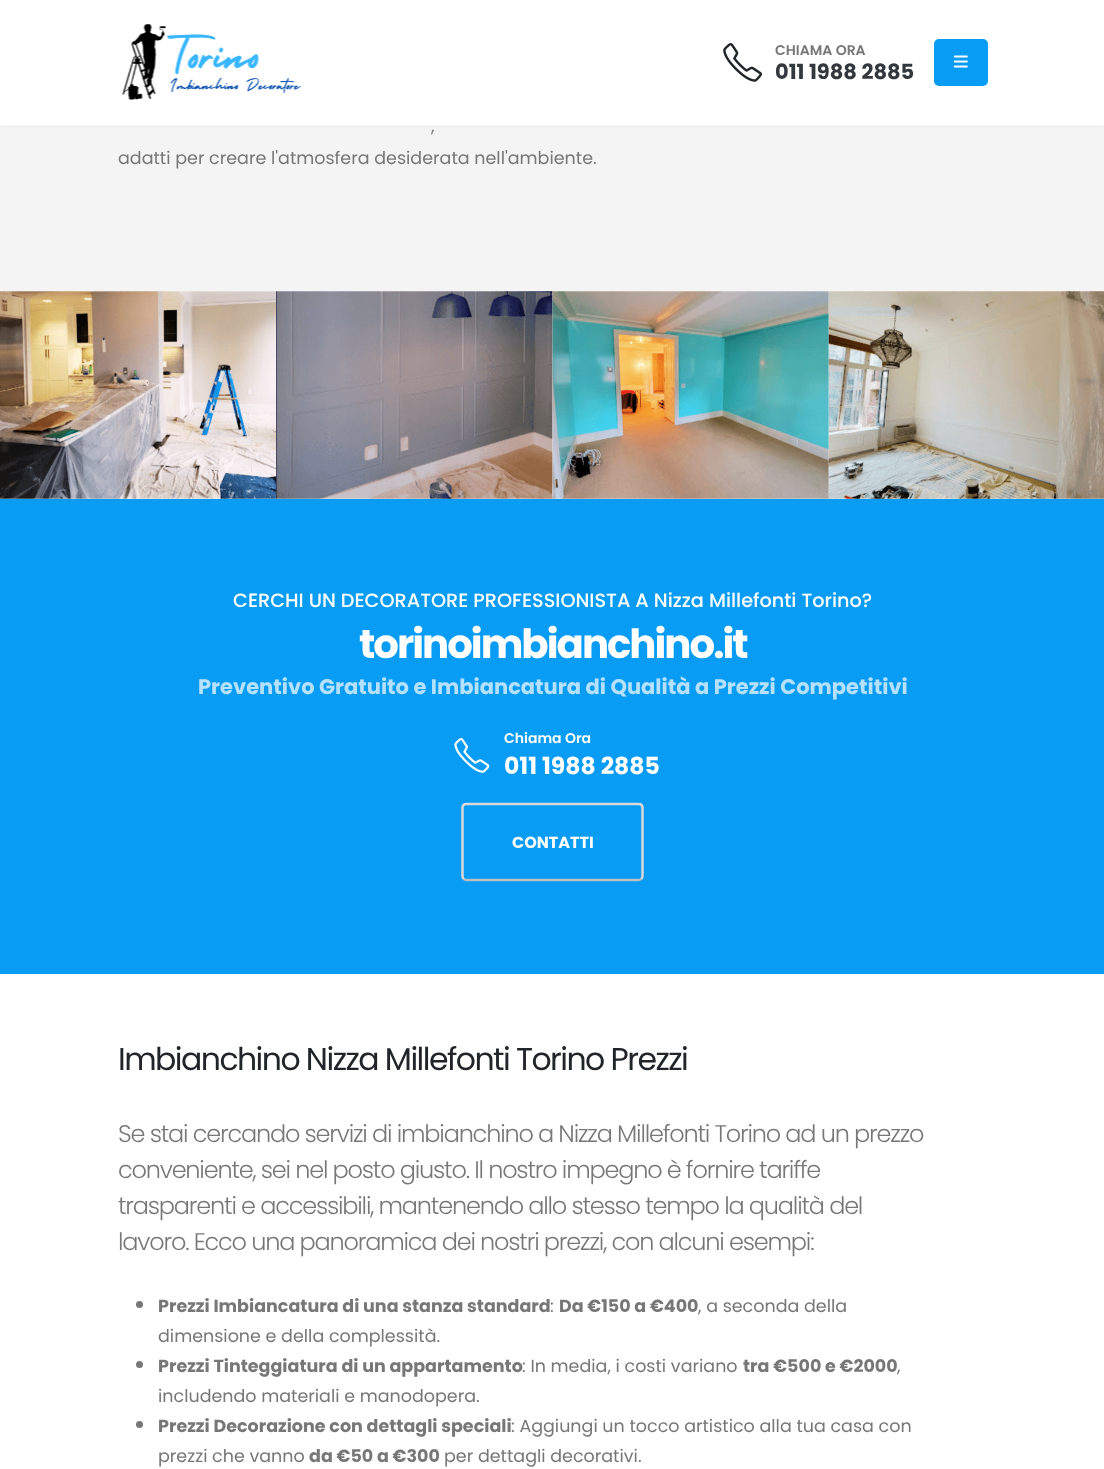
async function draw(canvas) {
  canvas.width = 1104
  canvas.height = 1469
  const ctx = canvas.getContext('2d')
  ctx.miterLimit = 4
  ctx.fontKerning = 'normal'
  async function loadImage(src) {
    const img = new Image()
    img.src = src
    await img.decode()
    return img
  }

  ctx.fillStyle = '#fff'
  ctx.fillRect(0, 0, 1104, 1469)
  ctx.fillStyle = '#f4f4f4'
  ctx.fillRect(0, 126, 1104, 165)
  ctx.fillStyle = '#eaeaea80'
  ctx.filter = 'blur(2px)'
  ctx.beginPath()
  ctx.rect(0, 0, 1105, 126)
  ctx.fill()
  ctx.filter = 'none'
  ctx.fillStyle = '#fff'
  ctx.fillRect(0, 0, 1104, 125)
  ctx.fillStyle = '#f5f5f5'
  ctx.fillRect(0, 125, 1104, 1)
  ctx.drawImage(await loadImage('image0.png'), 122, 24, 179, 76)
  ctx.drawImage(await loadImage('image1.png'), 723, 43, 39, 39)
  ctx.font = '600 14px Poppins'
  ctx.fillStyle = '#777'
  ctx.fillText('CHIAMA ORA', 775, 55)
  ctx.font = 'bold 21px Poppins'
  ctx.fillStyle = '#32383e'
  ctx.fillText('011 1988 2885', 775, 79)
  ctx.fillStyle = '#099cf4'
  ctx.beginPath()
  ctx.roundRect(934, 39, 54, 47, 5)
  ctx.fill()
  ctx.drawImage(await loadImage('image2.png'), 953, 55, 15, 13)
  ctx.font = '17.5px Poppins'
  ctx.fillStyle = '#777'
  ctx.fillText(',', 431, 132)
  ctx.fillText('adatti per creare l\'atmosfera desiderata nell\'ambiente.', 118, 164)
  ctx.drawImage(await loadImage('image3.png'), 0, 291, 277, 208)
  ctx.drawImage(await loadImage('image4.png'), 276, 291, 277, 208)
  ctx.drawImage(await loadImage('image5.png'), 552, 291, 277, 208)
  ctx.drawImage(await loadImage('image6.png'), 828, 291, 276, 208)
  ctx.fillStyle = '#099cf4'
  ctx.fillRect(0, 499, 1104, 475)
  ctx.font = '500 19.25px Poppins'
  ctx.fillStyle = '#fff'
  ctx.fillText('CERCHI UN DECORATORE PROFESSIONISTA A Nizza Millefonti Torino?', 233, 607)
  ctx.letterSpacing = '-2px'
  ctx.font = 'bold 40.25px Poppins'
  ctx.fillText('torinoimbianchino.it', 359, 658)
  ctx.letterSpacing = '0px'
  ctx.font = 'bold 21px Poppins'
  ctx.fillStyle = '#b5e1fc'
  ctx.fillText('Preventivo Gratuito e Imbiancatura di Qualità a Prezzi Competitivi', 198, 694)
  ctx.drawImage(await loadImage('image7.png'), 454, 738, 36, 35)
  ctx.font = '600 14px Poppins'
  ctx.fillStyle = '#fff'
  ctx.fillText('Chiama Ora', 504, 743)
  ctx.font = 'bold 23.5px Poppins'
  ctx.fillText('011 1988 2885', 504, 774)
  ctx.beginPath()
  ctx.moveTo(641.5, 879)
  ctx.bezierCurveTo(640.5, 879.5, 639.5, 880, 639, 880)
  ctx.lineTo(466, 880)
  ctx.bezierCurveTo(465.5, 880, 464.5, 879.5, 463.5, 879)
  ctx.strokeStyle = '#bfbfbf'
  ctx.lineWidth = 2.5
  ctx.stroke()
  ctx.beginPath()
  ctx.moveTo(463.5, 879)
  ctx.bezierCurveTo(463, 878, 462.5, 877, 462.5, 876)
  ctx.lineTo(462.5, 807.5)
  ctx.bezierCurveTo(462.5, 806.5, 463, 805.5, 463.5, 805)
  ctx.bezierCurveTo(464.5, 804, 465.5, 804, 466, 804)
  ctx.lineTo(639, 804)
  ctx.bezierCurveTo(639.5, 804, 640.5, 804, 641.5, 805)
  ctx.bezierCurveTo(642, 805.5, 642.5, 806.5, 642.5, 807.5)
  ctx.lineTo(642.5, 876)
  ctx.bezierCurveTo(642.5, 877, 642, 878, 641.5, 879)
  ctx.strokeStyle = '#d9d9d9'
  ctx.stroke()
  ctx.font = 'bold 16px Poppins'
  ctx.fillText('CONTATTI', 512, 848)
  ctx.letterSpacing = '-1.55px'
  ctx.font = '31.5px Poppins'
  ctx.fillStyle = '#212529'
  ctx.fillText('Imbianchino Nizza Millefonti Torino Prezzi', 118, 1070)
  ctx.letterSpacing = '-1.2px'
  ctx.font = '300 24px Poppins'
  ctx.fillStyle = '#777'
  ctx.fillText('Se stai cercando servizi di imbianchino a Nizza Millefonti Torino ad un prezzo', 118, 1142)
  ctx.fillText('conveniente, sei nel posto giusto. Il nostro impegno è fornire tariffe', 118, 1178)
  ctx.fillText('trasparenti e accessibili, mantenendo allo stesso tempo la qualità del', 118, 1214)
  ctx.fillText('lavoro. Ecco una panoramica dei nostri prezzi, con alcuni esempi:', 118, 1250)
  ctx.beginPath()
  ctx.arc(139.5, 1304.5, 3.5, 0, 2 * Math.PI)
  ctx.fill()
  ctx.letterSpacing = '0px'
  ctx.font = 'bold 17.5px Poppins'
  ctx.fillText('Prezzi Imbiancatura di una stanza standard', 158, 1312)
  ctx.font = '17.5px Poppins'
  ctx.fillText(':', 550, 1312)
  ctx.font = 'bold 17.5px Poppins'
  ctx.fillText('Da €150 a €400', 559, 1312)
  ctx.font = '17.5px Poppins'
  ctx.fillText(', a seconda della', 698, 1312)
  ctx.fillText('dimensione e della complessità.', 158, 1342)
  ctx.beginPath()
  ctx.arc(139.5, 1364.5, 3.5, 0, 2 * Math.PI)
  ctx.fill()
  ctx.font = 'bold 17.5px Poppins'
  ctx.fillText('Prezzi Tinteggiatura di un appartamento', 158, 1372)
  ctx.font = '17.5px Poppins'
  ctx.fillText(': In media, i costi variano', 522, 1372)
  ctx.font = 'bold 17.5px Poppins'
  ctx.fillText('tra €500 e €2000', 743, 1372)
  ctx.font = '17.5px Poppins'
  ctx.fillText(',', 897, 1372)
  ctx.fillText('includendo materiali e manodopera.', 158, 1402)
  ctx.beginPath()
  ctx.arc(139.5, 1424.5, 3.5, 0, 2 * Math.PI)
  ctx.fill()
  ctx.font = 'bold 17.5px Poppins'
  ctx.fillText('Prezzi Decorazione con dettagli speciali', 158, 1432)
  ctx.font = '17.5px Poppins'
  ctx.fillText(': Aggiungi un tocco artistico alla tua casa con', 511, 1432)
  ctx.fillText('prezzi che vanno', 158, 1462)
  ctx.font = 'bold 17.5px Poppins'
  ctx.fillText('da €50 a €300', 309, 1462)
  ctx.font = '17.5px Poppins'
  ctx.fillText('per dettagli decorativi.', 444, 1462)
}

draw(document.querySelector('canvas'))
